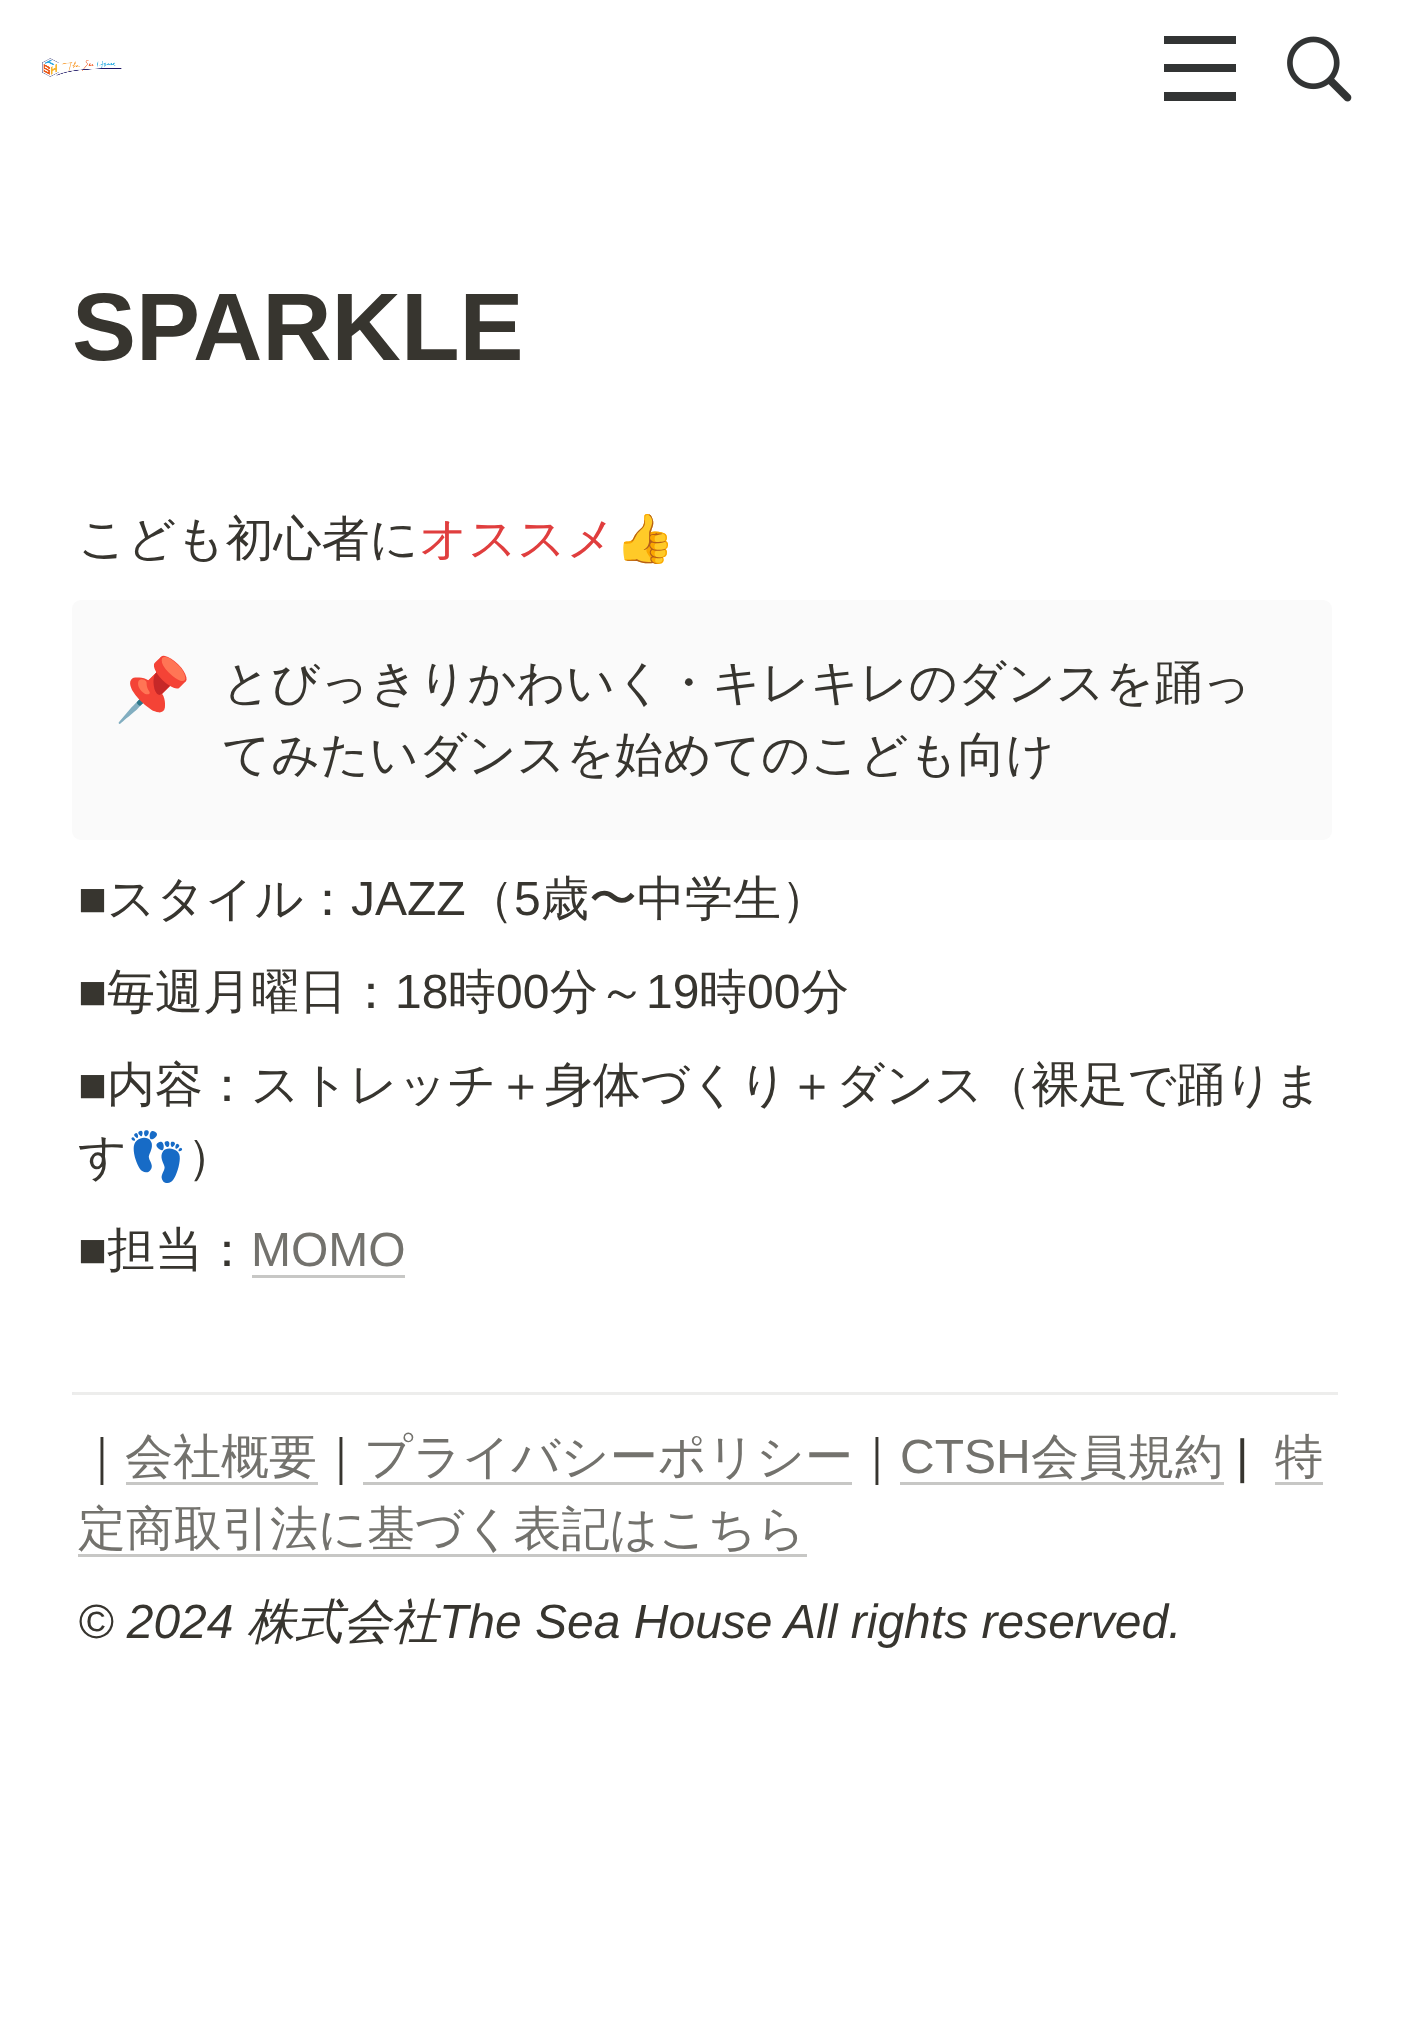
async function draw(canvas) {
  canvas.width = 1402
  canvas.height = 2030
  const ctx = canvas.getContext('2d')
  ctx.miterLimit = 4
  ctx.fontKerning = 'normal'
  async function loadImage(src) {
    const img = new Image()
    img.src = src
    await img.decode()
    return img
  }

  ctx.fillStyle = '#fff'
  ctx.fillRect(0, 0, 1402, 2030)
  ctx.drawImage(await loadImage('image0.png'), 42, 58, 80, 19)
  ctx.fillStyle = '#323434'
  ctx.fillRect(1164, 36, 72, 8)
  ctx.fillRect(1164, 64, 72, 8)
  ctx.fillRect(1164, 92, 72, 9)
  ctx.drawImage(await loadImage('image1.png'), 1287, 36, 65, 66)
  ctx.font = 'bold 96px Liberation Sans'
  ctx.fillStyle = '#37352f'
  ctx.fillText('SPARKLE', 72, 360)
  ctx.font = '500 48px WenQuanYi Zen Hei'
  ctx.fillText('こども初心者に', 78, 555)
  ctx.fillStyle = '#e03e3e'
  ctx.fillText('オススメ', 419, 555)
  ctx.font = '48px Noto Color Emoji'
  ctx.fillStyle = '#37352f'
  ctx.fillText('👍', 615, 555)
  ctx.fillStyle = '#fafafa'
  ctx.beginPath()
  ctx.roundRect(72, 600, 1260, 240, 9)
  ctx.fill()
  ctx.font = '62px Noto Color Emoji'
  ctx.fillStyle = '#37352f'
  ctx.fillText('📌', 114, 711)
  ctx.font = '500 48px WenQuanYi Zen Hei'
  ctx.fillText('とびっきりかわいく・キレキレのダンスを踊っ', 222, 699)
  ctx.fillText('てみたいダンスを始めてのこども向け', 222, 771)
  ctx.font = '48px Liberation Sans'
  ctx.fillText('■', 78, 915)
  ctx.font = '500 48px WenQuanYi Zen Hei'
  ctx.fillText('スタイル：', 107, 915)
  ctx.font = '48px Liberation Sans'
  ctx.fillText('JAZZ', 351, 915)
  ctx.font = '500 48px WenQuanYi Zen Hei'
  ctx.fillText('（', 466, 915)
  ctx.font = '48px Liberation Sans'
  ctx.fillText('5', 514, 915)
  ctx.font = '500 48px WenQuanYi Zen Hei'
  ctx.fillText('歳〜中学生）', 541, 915)
  ctx.font = '48px Liberation Sans'
  ctx.fillText('■', 78, 1008)
  ctx.font = '500 48px WenQuanYi Zen Hei'
  ctx.fillText('毎週月曜日：', 107, 1008)
  ctx.font = '48px Liberation Sans'
  ctx.fillText('18', 395, 1008)
  ctx.font = '500 48px WenQuanYi Zen Hei'
  ctx.fillText('時', 448, 1008)
  ctx.font = '48px Liberation Sans'
  ctx.fillText('00', 496, 1008)
  ctx.font = '500 48px WenQuanYi Zen Hei'
  ctx.fillText('分～', 550, 1008)
  ctx.font = '48px Liberation Sans'
  ctx.fillText('19', 646, 1008)
  ctx.font = '500 48px WenQuanYi Zen Hei'
  ctx.fillText('時', 699, 1008)
  ctx.font = '48px Liberation Sans'
  ctx.fillText('00', 747, 1008)
  ctx.font = '500 48px WenQuanYi Zen Hei'
  ctx.fillText('分', 801, 1008)
  ctx.font = '48px Liberation Sans'
  ctx.fillText('■', 78, 1101)
  ctx.font = '500 48px WenQuanYi Zen Hei'
  ctx.fillText('内容：ストレッチ＋身体づくり＋ダンス（裸足で踊りま', 107, 1101)
  ctx.fillText('す', 78, 1173)
  ctx.font = '48px Noto Color Emoji'
  ctx.fillText('👣', 127, 1173)
  ctx.font = '500 48px WenQuanYi Zen Hei'
  ctx.fillText('）', 187, 1173)
  ctx.font = '48px Liberation Sans'
  ctx.fillText('■', 78, 1266)
  ctx.font = '500 48px WenQuanYi Zen Hei'
  ctx.fillText('担当：', 107, 1266)
  ctx.font = '48px Liberation Sans'
  ctx.fillStyle = '#73726d'
  ctx.fillText('MOMO', 251, 1266)
  ctx.fillStyle = '#c7c7c5'
  ctx.fillRect(252, 1275, 153, 3)
  ctx.fillStyle = '#ededec'
  ctx.beginPath()
  ctx.moveTo(1338, 1392)
  ctx.lineTo(1338, 1395)
  ctx.lineTo(1335, 1392)
  ctx.closePath()
  ctx.fill()
  ctx.fillStyle = '#37352f17'
  ctx.beginPath()
  ctx.moveTo(1338, 1395)
  ctx.lineTo(72, 1395)
  ctx.lineTo(75, 1392)
  ctx.lineTo(1335, 1392)
  ctx.closePath()
  ctx.fill()
  ctx.fillStyle = '#25231f17'
  ctx.beginPath()
  ctx.moveTo(72, 1395)
  ctx.lineTo(72, 1392)
  ctx.lineTo(75, 1392)
  ctx.closePath()
  ctx.fill()
  ctx.font = '500 48px WenQuanYi Zen Hei'
  ctx.fillStyle = '#37352f'
  ctx.fillText('｜', 78, 1473)
  ctx.fillStyle = '#73726d'
  ctx.fillText('会社概要', 125, 1473)
  ctx.fillStyle = '#c7c7c5'
  ctx.fillRect(126, 1482, 192, 3)
  ctx.fillStyle = '#37352f'
  ctx.fillText('｜', 317, 1473)
  ctx.fillStyle = '#73726d'
  ctx.fillText('プライバシーポリシー', 364, 1473)
  ctx.fillStyle = '#c7c7c5'
  ctx.fillRect(363, 1482, 489, 3)
  ctx.fillStyle = '#37352f'
  ctx.fillText('｜', 853, 1473)
  ctx.font = '48px Liberation Sans'
  ctx.fillStyle = '#73726d'
  ctx.fillText('CTSH', 900, 1473)
  ctx.font = '500 48px WenQuanYi Zen Hei'
  ctx.fillText('会員規約', 1031, 1473)
  ctx.fillStyle = '#c7c7c5'
  ctx.fillRect(900, 1482, 324, 3)
  ctx.font = '48px Liberation Sans'
  ctx.fillStyle = '#37352f'
  ctx.fillText('|', 1236, 1473)
  ctx.font = '500 48px WenQuanYi Zen Hei'
  ctx.fillStyle = '#73726d'
  ctx.fillText('特', 1275, 1473)
  ctx.fillStyle = '#c7c7c5'
  ctx.fillRect(1275, 1482, 48, 3)
  ctx.fillStyle = '#73726d'
  ctx.fillText('定商取引法に基づく表記はこちら', 78, 1545)
  ctx.fillStyle = '#c7c7c5'
  ctx.fillRect(78, 1554, 729, 3)
  ctx.font = 'italic 48px Liberation Sans'
  ctx.fillStyle = '#37352f'
  ctx.fillText('© 2024', 78, 1638)
  ctx.font = 'italic 500 48px WenQuanYi Zen Hei'
  ctx.fillText('株式会社', 247, 1638)
  ctx.font = 'italic 48px Liberation Sans'
  ctx.fillText('The Sea House All rights reserved.', 439, 1638)
}

draw(document.querySelector('canvas'))
